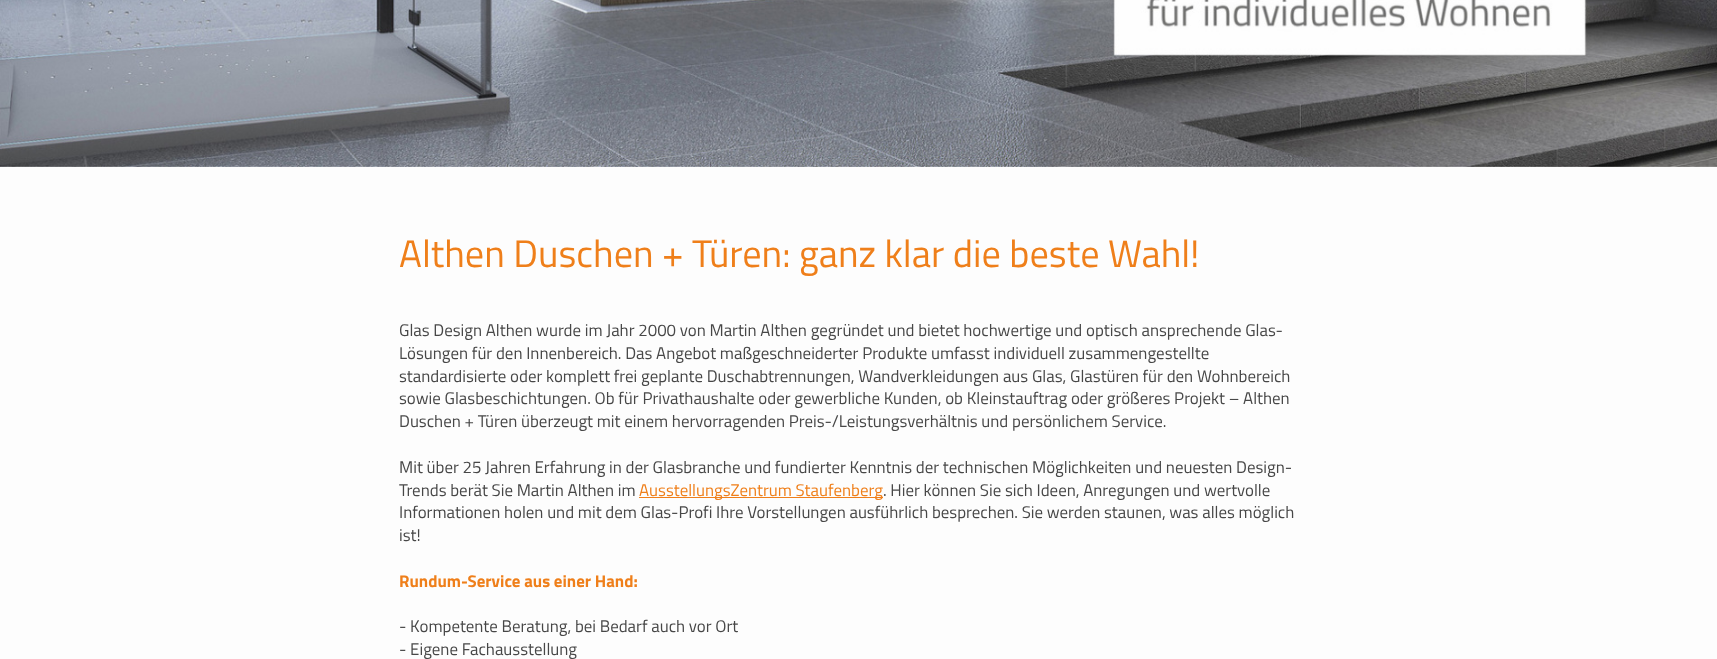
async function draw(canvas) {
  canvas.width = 1717
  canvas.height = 659
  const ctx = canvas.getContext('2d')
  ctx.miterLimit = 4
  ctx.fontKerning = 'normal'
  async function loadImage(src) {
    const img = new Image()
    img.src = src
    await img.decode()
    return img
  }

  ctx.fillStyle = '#fdfdfd'
  ctx.fillRect(0, 0, 1717, 659)
  ctx.drawImage(await loadImage('image0.png'), 0, 0, 1717, 167)
  ctx.font = '38.4px Titillium Web'
  ctx.fillStyle = '#ef7f1a'
  ctx.fillText('Althen Duschen + Türen: ganz klar die beste Wahl!', 399, 267)
  ctx.font = '16.9px Titillium Web'
  ctx.fillStyle = '#474747'
  ctx.fillText('Glas Design Althen wurde im Jahr 2000 von Martin Althen gegründet und bietet hochwertige und optisch ansprechende Glas-', 399, 336)
  ctx.fillText('Lösungen für den Innenbereich. Das Angebot maßgeschneiderter Produkte umfasst individuell zusammengestellte', 399, 359)
  ctx.fillText('standardisierte oder komplett frei geplante Duschabtrennungen, Wandverkleidungen aus Glas, Glastüren für den Wohnbereich', 399, 382)
  ctx.fillText('sowie Glasbeschichtungen. Ob für Privathaushalte oder gewerbliche Kunden, ob Kleinstauftrag oder größeres Projekt – Althen', 399, 404)
  ctx.fillText('Duschen + Türen überzeugt mit einem hervorragenden Preis-/Leistungsverhältnis und persönlichem Service.', 399, 427)
  ctx.fillText('Mit über 25 Jahren Erfahrung in der Glasbranche und fundierter Kenntnis der technischen Möglichkeiten und neuesten Design-', 399, 473)
  ctx.fillText('Trends berät Sie Martin Althen im', 399, 496)
  ctx.fillStyle = '#ef7f1a'
  ctx.fillRect(639, 497, 244, 1)
  ctx.fillText('AusstellungsZentrum Staufenberg', 639, 496)
  ctx.fillStyle = '#474747'
  ctx.fillText('. Hier können Sie sich Ideen, Anregungen und wertvolle', 883, 496)
  ctx.fillText('Informationen holen und mit dem Glas-Profi Ihre Vorstellungen ausführlich besprechen. Sie werden staunen, was alles möglich', 399, 518)
  ctx.fillText('ist!', 399, 541)
  ctx.font = 'bold 16.9px Titillium Web'
  ctx.fillStyle = '#ef7f1a'
  ctx.fillText('Rundum-Service aus einer Hand:', 399, 587)
  ctx.font = '16.9px Titillium Web'
  ctx.fillStyle = '#474747'
  ctx.fillText('- Kompetente Beratung, bei Bedarf auch vor Ort', 399, 632)
  ctx.fillText('- Eigene Fachausstellung', 399, 655)
}

draw(document.querySelector('canvas'))
